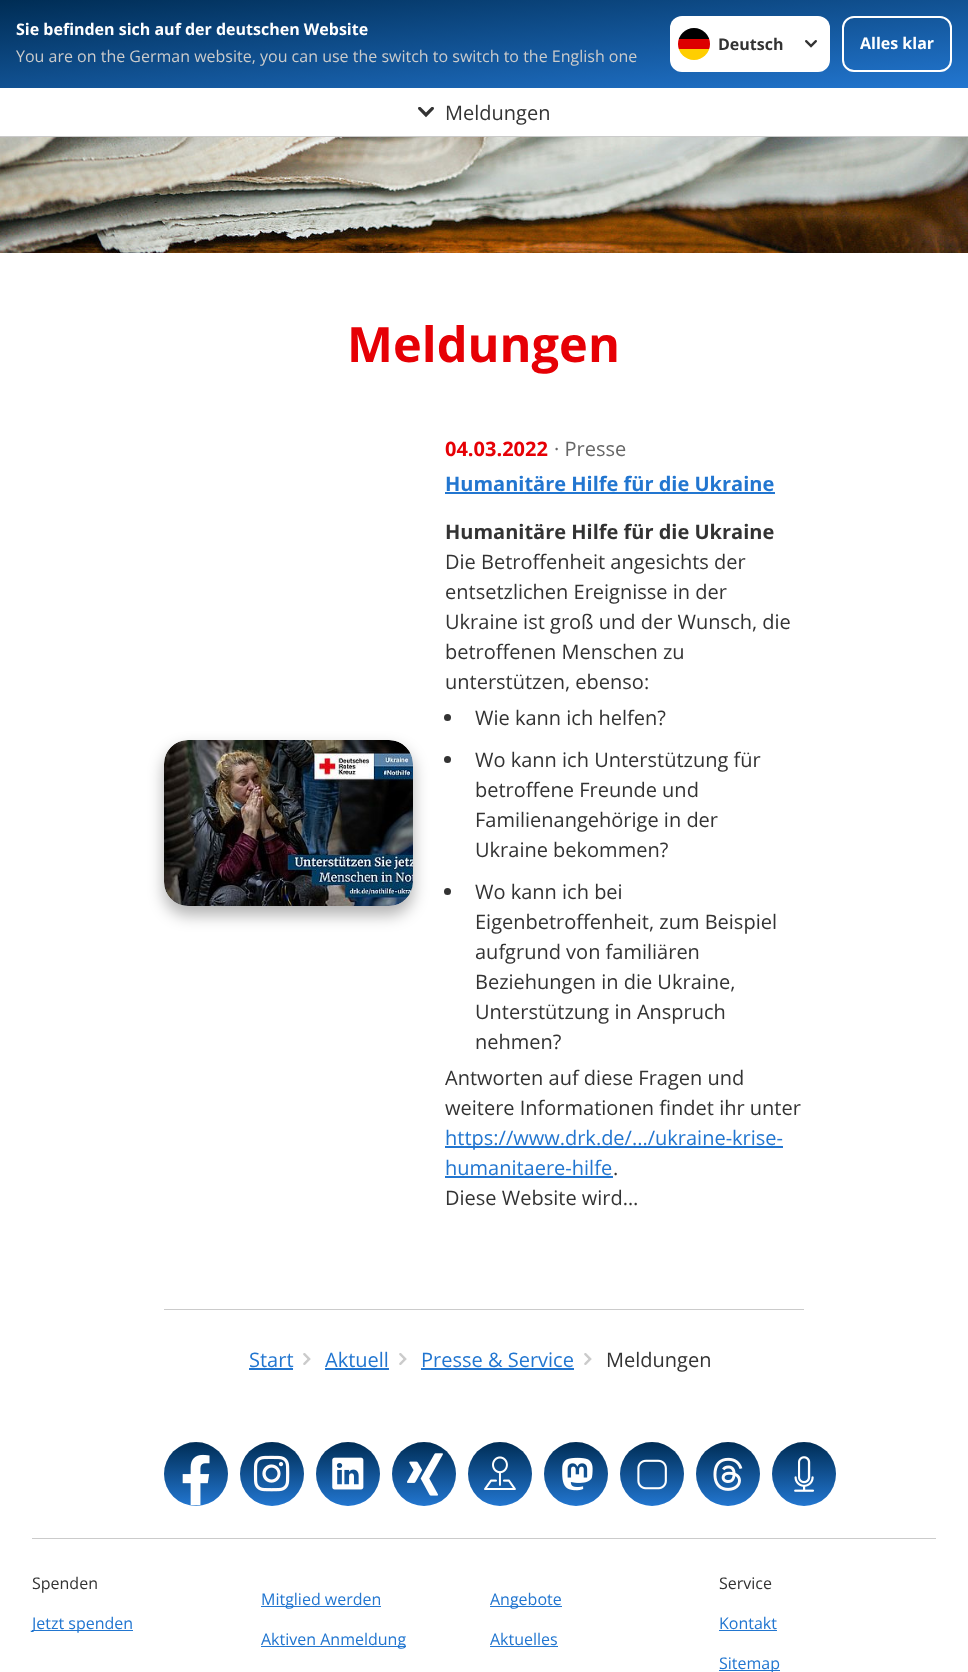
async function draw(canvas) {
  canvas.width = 968
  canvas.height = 1672
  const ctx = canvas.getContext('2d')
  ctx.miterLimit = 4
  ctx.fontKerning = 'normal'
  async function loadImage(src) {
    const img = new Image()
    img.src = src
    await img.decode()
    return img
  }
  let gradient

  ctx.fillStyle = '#fff'
  ctx.fillRect(0, 0, 968, 1672)
  gradient = ctx.createLinearGradient(476, -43, 492, 131)
  gradient.addColorStop(0, '#002d55')
  gradient.addColorStop(1, '#2276d0')
  ctx.fillStyle = gradient
  ctx.fillRect(0, 0, 968, 88)
  ctx.font = 'bold 16px Open Sans'
  ctx.fillStyle = '#fff'
  ctx.fillText('Sie befinden sich auf der deutschen Website', 16, 35)
  ctx.font = '16px Open Sans'
  ctx.fillStyle = '#cbcbcb'
  ctx.fillText('You are on the German website, you can use the switch to switch to the English one', 16, 62)
  ctx.fillStyle = '#fff'
  ctx.beginPath()
  ctx.roundRect(670, 16, 160, 56, 12)
  ctx.fill()
  ctx.save()
  ctx.beginPath()
  ctx.roundRect(678, 28, 32, 32, 16)
  ctx.clip()
  ctx.fillStyle = '#ffce00'
  ctx.fillRect(678, 49, 32, 11)
  ctx.fillStyle = '#000'
  ctx.fillRect(678, 28, 32, 11)
  ctx.fillStyle = '#d00'
  ctx.fillRect(678, 39, 32, 10)
  ctx.restore()
  ctx.drawImage(await loadImage('image0.png'), 805, 40, 12, 8)
  ctx.font = 'bold 16px Open Sans'
  ctx.fillStyle = '#333'
  ctx.fillText('Deutsch', 718, 50)
  ctx.beginPath()
  ctx.roundRect(843, 17, 108, 54, 11)
  ctx.strokeStyle = '#fff'
  ctx.lineWidth = 2
  ctx.stroke()
  ctx.fillStyle = '#fff'
  ctx.fillText('Alles klar', 860, 49)
  ctx.fillStyle = '#cbcbcb'
  ctx.fillRect(0, 136, 968, 1)
  ctx.drawImage(await loadImage('image1.png'), 418, 107, 16, 11)
  ctx.font = '20px Open Sans'
  ctx.fillStyle = '#333'
  ctx.fillText('Meldungen', 445, 120)
  ctx.drawImage(await loadImage('image2.png'), 0, 137, 968, 116)
  ctx.font = 'bold 48.75px Open Sans'
  ctx.fillStyle = '#e60005'
  ctx.fillText('Meldungen', 347, 362)
  ctx.fillStyle = '#0000004d'
  ctx.filter = 'blur(8px)'
  ctx.beginPath()
  ctx.roundRect(164, 748, 249, 167, 24)
  ctx.fill()
  ctx.filter = 'none'
  ctx.drawImage(await loadImage('image3.png'), 164, 740, 249, 166)
  ctx.font = 'bold 20px Open Sans'
  ctx.fillStyle = '#e60005'
  ctx.fillText('04.03.2022', 445, 456)
  ctx.font = '20px Open Sans'
  ctx.fillStyle = '#666'
  ctx.fillText('· Presse', 554, 456)
  ctx.font = 'bold 20px Open Sans'
  ctx.fillStyle = '#2276d0'
  ctx.fillText('Humanitäre Hilfe für die Ukraine', 445, 491)
  ctx.fillRect(445, 492, 330, 2)
  ctx.fillStyle = '#333'
  ctx.fillText('Humanitäre Hilfe für die Ukraine', 445, 539)
  ctx.font = '20px Open Sans'
  ctx.fillText('Die Betroffenheit angesichts der', 445, 569)
  ctx.fillText('entsetzlichen Ereignisse in der', 445, 599)
  ctx.fillText('Ukraine ist groß und der Wunsch, die', 445, 629)
  ctx.fillText('betroffenen Menschen zu', 445, 659)
  ctx.fillText('unterstützen, ebenso:', 445, 689)
  ctx.beginPath()
  ctx.arc(447.5, 717.5, 3.5, 0, 2 * Math.PI)
  ctx.fill()
  ctx.fillText('Wie kann ich helfen?', 475, 725)
  ctx.beginPath()
  ctx.arc(447.5, 759.5, 3.5, 0, 2 * Math.PI)
  ctx.fill()
  ctx.fillText('Wo kann ich Unterstützung für', 475, 767)
  ctx.fillText('betroffene Freunde und', 475, 797)
  ctx.fillText('Familienangehörige in der', 475, 827)
  ctx.fillText('Ukraine bekommen?', 475, 857)
  ctx.beginPath()
  ctx.arc(447.5, 891.5, 3.5, 0, 2 * Math.PI)
  ctx.fill()
  ctx.fillText('Wo kann ich bei', 475, 899)
  ctx.fillText('Eigenbetroffenheit, zum Beispiel', 475, 929)
  ctx.fillText('aufgrund von familiären', 475, 959)
  ctx.fillText('Beziehungen in die Ukraine,', 475, 989)
  ctx.fillText('Unterstützung in Anspruch', 475, 1019)
  ctx.fillText('nehmen?', 475, 1049)
  ctx.fillText('Antworten auf diese Fragen und', 445, 1085)
  ctx.fillText('weitere Informationen findet ihr unter', 445, 1115)
  ctx.fillStyle = '#2276d0'
  ctx.fillRect(445, 1146, 338, 2)
  ctx.fillText('https://www.drk.de/.../ukraine-krise-', 445, 1145)
  ctx.fillText('humanitaere-hilfe', 445, 1175)
  ctx.fillRect(445, 1176, 168, 2)
  ctx.fillStyle = '#333'
  ctx.fillText('.', 613, 1175)
  ctx.fillText('Diese Website wird…', 445, 1205)
  ctx.fillStyle = '#cbcbcb'
  ctx.fillRect(164, 1309, 640, 1)
  ctx.fillStyle = '#2276d0'
  ctx.fillText('Start', 249, 1367)
  ctx.fillRect(249, 1368, 44, 2)
  ctx.drawImage(await loadImage('image4.png'), 303, 1353, 8, 12)
  ctx.fillText('Aktuell', 325, 1367)
  ctx.fillRect(325, 1368, 64, 2)
  ctx.drawImage(await loadImage('image4.png'), 399, 1353, 8, 12)
  ctx.fillText('Presse & Service', 421, 1367)
  ctx.fillRect(421, 1368, 153, 2)
  ctx.drawImage(await loadImage('image4.png'), 584, 1353, 8, 12)
  ctx.fillStyle = '#333'
  ctx.fillText('Meldungen', 606, 1367)
  gradient = ctx.createLinearGradient(196, 1442, 196, 1506)
  gradient.addColorStop(0, '#002d55')
  gradient.addColorStop(1, '#2276d0')
  ctx.fillStyle = gradient
  ctx.beginPath()
  ctx.arc(196, 1474, 32, 0, 2 * Math.PI)
  ctx.fill()
  ctx.drawImage(await loadImage('image5.png'), 177, 1442, 33, 64)
  gradient = ctx.createLinearGradient(272, 1442, 272, 1506)
  gradient.addColorStop(0, '#002d55')
  gradient.addColorStop(1, '#2276d0')
  ctx.fillStyle = gradient
  ctx.beginPath()
  ctx.arc(272, 1474, 32, 0, 2 * Math.PI)
  ctx.fill()
  ctx.drawImage(await loadImage('image6.png'), 253, 1455, 37, 37)
  gradient = ctx.createLinearGradient(348, 1442, 348, 1506)
  gradient.addColorStop(0, '#002d55')
  gradient.addColorStop(1, '#2276d0')
  ctx.fillStyle = gradient
  ctx.beginPath()
  ctx.arc(348, 1474, 32, 0, 2 * Math.PI)
  ctx.fill()
  ctx.drawImage(await loadImage('image7.png'), 332, 1457, 32, 33)
  gradient = ctx.createLinearGradient(424, 1442, 424, 1506)
  gradient.addColorStop(0, '#002d55')
  gradient.addColorStop(1, '#2276d0')
  ctx.fillStyle = gradient
  ctx.beginPath()
  ctx.arc(424, 1474, 32, 0, 2 * Math.PI)
  ctx.fill()
  ctx.drawImage(await loadImage('image8.png'), 407, 1453, 36, 43)
  gradient = ctx.createLinearGradient(500, 1442, 500, 1506)
  gradient.addColorStop(0, '#002d55')
  gradient.addColorStop(1, '#2276d0')
  ctx.fillStyle = gradient
  ctx.beginPath()
  ctx.arc(500, 1474, 32, 0, 2 * Math.PI)
  ctx.fill()
  ctx.drawImage(await loadImage('image9.png'), 484, 1456, 32, 34)
  gradient = ctx.createLinearGradient(576, 1442, 576, 1506)
  gradient.addColorStop(0, '#002d55')
  gradient.addColorStop(1, '#2276d0')
  ctx.fillStyle = gradient
  ctx.beginPath()
  ctx.arc(576, 1474, 32, 0, 2 * Math.PI)
  ctx.fill()
  ctx.drawImage(await loadImage('image10.png'), 562, 1457, 31, 34)
  gradient = ctx.createLinearGradient(652, 1442, 652, 1506)
  gradient.addColorStop(0, '#002d55')
  gradient.addColorStop(1, '#2276d0')
  ctx.fillStyle = gradient
  ctx.beginPath()
  ctx.arc(652, 1474, 32, 0, 2 * Math.PI)
  ctx.fill()
  ctx.drawImage(await loadImage('image11.png'), 637, 1459, 30, 31)
  gradient = ctx.createLinearGradient(728, 1442, 728, 1506)
  gradient.addColorStop(0, '#002d55')
  gradient.addColorStop(1, '#2276d0')
  ctx.fillStyle = gradient
  ctx.beginPath()
  ctx.arc(728, 1474, 32, 0, 2 * Math.PI)
  ctx.fill()
  ctx.drawImage(await loadImage('image12.png'), 713, 1457, 30, 34)
  gradient = ctx.createLinearGradient(804, 1442, 804, 1506)
  gradient.addColorStop(0, '#002d55')
  gradient.addColorStop(1, '#2276d0')
  ctx.fillStyle = gradient
  ctx.beginPath()
  ctx.arc(804, 1474, 32, 0, 2 * Math.PI)
  ctx.fill()
  ctx.drawImage(await loadImage('image13.png'), 794, 1456, 21, 36)
  ctx.fillStyle = '#cbcbcb'
  ctx.fillRect(32, 1538, 904, 1)
  ctx.font = '16px Open Sans'
  ctx.fillStyle = '#333'
  ctx.fillText('Spenden', 32, 1589)
  ctx.fillStyle = '#2276d0'
  ctx.fillRect(32, 1630, 101, 1)
  ctx.fillText('Jetzt spenden', 32, 1629)
  ctx.fillRect(261, 1606, 120, 1)
  ctx.fillText('Mitglied werden', 261, 1605)
  ctx.fillRect(261, 1646, 145, 1)
  ctx.fillText('Aktiven Anmeldung', 261, 1645)
  ctx.fillRect(490, 1606, 72, 1)
  ctx.fillText('Angebote', 490, 1605)
  ctx.fillText('Aktuelles', 490, 1645)
  ctx.fillRect(490, 1646, 68, 1)
  ctx.fillStyle = '#333'
  ctx.fillText('Service', 719, 1589)
  ctx.fillStyle = '#2276d0'
  ctx.fillText('Kontakt', 719, 1629)
  ctx.fillRect(719, 1630, 58, 1)
  ctx.fillRect(719, 1670, 61, 1)
  ctx.fillText('Sitemap', 719, 1669)
}

draw(document.querySelector('canvas'))
